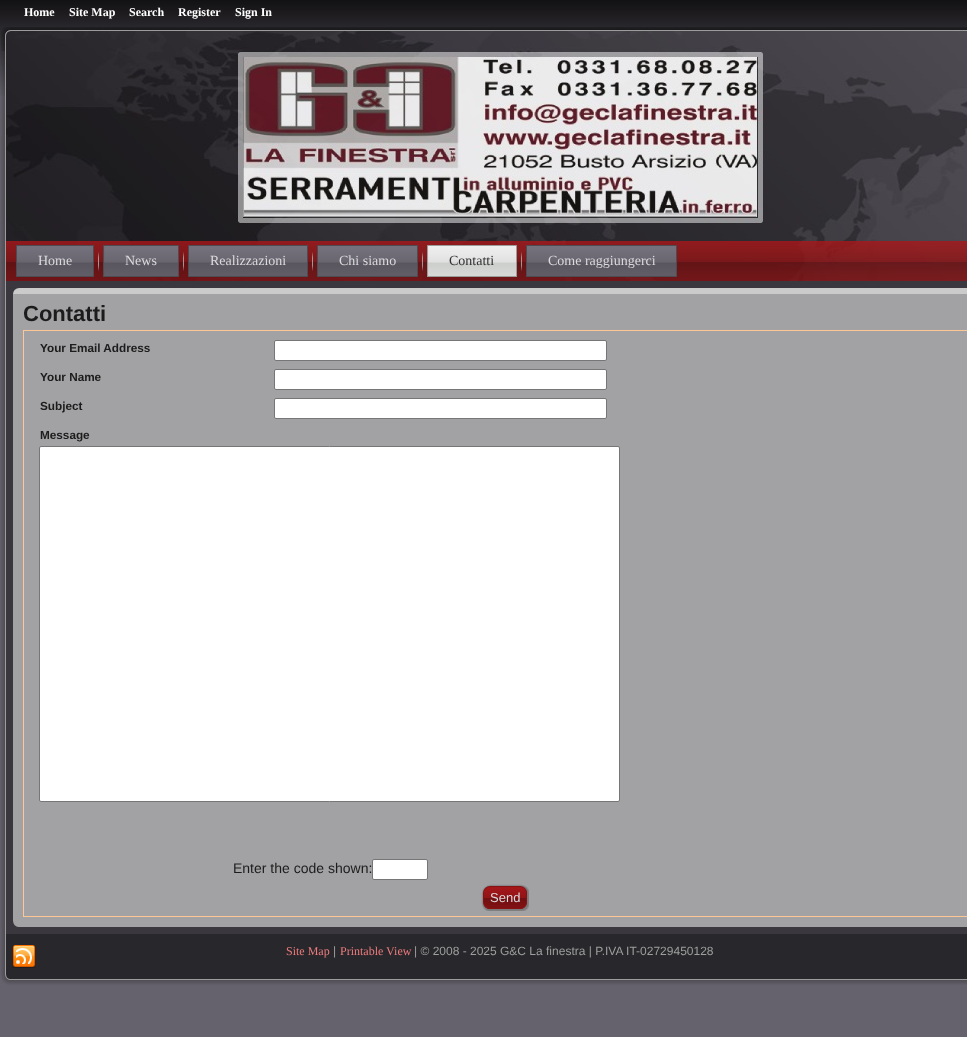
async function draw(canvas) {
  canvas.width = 967
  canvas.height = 1037
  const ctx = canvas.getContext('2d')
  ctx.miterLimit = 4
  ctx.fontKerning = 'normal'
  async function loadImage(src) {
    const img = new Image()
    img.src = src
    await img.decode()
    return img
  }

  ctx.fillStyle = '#66626d'
  ctx.fillRect(0, 0, 967, 1037)
  ctx.drawImage(await loadImage('image0.png'), 0, 0, 967, 96)
  ctx.font = 'bold 12px Liberation Serif'
  ctx.fillStyle = '#fff'
  ctx.fillText('Home', 24, 16)
  ctx.fillText('Site Map', 69, 16)
  ctx.fillText('Search', 129, 16)
  ctx.fillText('Register', 178, 16)
  ctx.fillText('Sign In', 235, 16)
  ctx.drawImage(await loadImage('image1.png'), 0, 27, 967, 958)
  ctx.drawImage(await loadImage('image2.png'), 1, 27, 966, 24)
  ctx.drawImage(await loadImage('image3.png'), 0, 51, 967, 908)
  ctx.drawImage(await loadImage('image4.png'), 6, 31, 961, 250)
  ctx.drawImage(await loadImage('image5.png'), 13, 33, 954, 247)
  ctx.drawImage(await loadImage('image6.png'), 6, 241, 961, 40)
  ctx.drawImage(await loadImage('image7.png'), 16, 245, 77, 32)
  ctx.drawImage(await loadImage('image8.png'), 93, 245, 1, 32)
  ctx.font = '14px Liberation Serif'
  ctx.fillStyle = '#dbdadd'
  ctx.fillText('Home', 38, 265)
  ctx.drawImage(await loadImage('image9.png'), 98, 252, 1, 19)
  ctx.drawImage(await loadImage('image10.png'), 103, 245, 75, 32)
  ctx.drawImage(await loadImage('image11.png'), 178, 245, 1, 32)
  ctx.fillText('News', 125, 265)
  ctx.drawImage(await loadImage('image12.png'), 183, 252, 1, 19)
  ctx.drawImage(await loadImage('image13.png'), 188, 245, 119, 32)
  ctx.drawImage(await loadImage('image14.png'), 307, 245, 1, 32)
  ctx.fillText('Realizzazioni', 210, 265)
  ctx.drawImage(await loadImage('image15.png'), 312, 252, 1, 19)
  ctx.drawImage(await loadImage('image16.png'), 317, 245, 100, 32)
  ctx.drawImage(await loadImage('image14.png'), 417, 245, 1, 32)
  ctx.fillText('Chi siamo', 339, 265)
  ctx.drawImage(await loadImage('image17.png'), 422, 252, 1, 19)
  ctx.drawImage(await loadImage('image18.png'), 427, 245, 89, 32)
  ctx.drawImage(await loadImage('image19.png'), 516, 245, 1, 32)
  ctx.fillStyle = '#303130'
  ctx.fillText('Contatti', 449, 265)
  ctx.drawImage(await loadImage('image20.png'), 521, 252, 1, 19)
  ctx.drawImage(await loadImage('image21.png'), 526, 245, 150, 32)
  ctx.drawImage(await loadImage('image8.png'), 676, 245, 1, 32)
  ctx.fillStyle = '#dbdadd'
  ctx.fillText('Come raggiungerci', 548, 265)
  ctx.drawImage(await loadImage('image22.png'), 13, 288, 954, 639)
  ctx.drawImage(await loadImage('image23.png'), 13, 288, 954, 6)
  ctx.fillStyle = '#a2a2a4'
  ctx.fillRect(13, 294, 954, 627)
  ctx.font = 'bold 22px Liberation Sans'
  ctx.fillStyle = '#1c1c1c'
  ctx.fillText('Contatti', 23, 321)
  ctx.strokeStyle = '#ffc796'
  ctx.strokeRect(23.5, 330.5, 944, 586)
  ctx.font = 'bold 11.75px Liberation Sans'
  ctx.fillText('Your Email Address', 40, 352)
  ctx.fillStyle = '#fff'
  ctx.beginPath()
  ctx.roundRect(274.5, 340.5, 332, 20, 1.5)
  ctx.fill()
  ctx.strokeStyle = '#767676'
  ctx.stroke()
  ctx.fillStyle = '#1c1c1c'
  ctx.fillText('Your Name', 40, 381)
  ctx.fillStyle = '#fff'
  ctx.beginPath()
  ctx.roundRect(274.5, 369.5, 332, 20, 1.5)
  ctx.fill()
  ctx.stroke()
  ctx.fillStyle = '#1c1c1c'
  ctx.fillText('Subject', 40, 410)
  ctx.fillStyle = '#fff'
  ctx.beginPath()
  ctx.roundRect(274.5, 398.5, 332, 20, 1.5)
  ctx.fill()
  ctx.stroke()
  ctx.fillStyle = '#1c1c1c'
  ctx.fillText('Message', 40, 439)
  ctx.fillStyle = '#fff'
  ctx.beginPath()
  ctx.roundRect(39.5, 446.5, 580, 355, 1.5)
  ctx.fill()
  ctx.stroke()
  ctx.font = '14px Liberation Sans'
  ctx.fillStyle = '#1c1c1c'
  ctx.fillText('Enter the code shown:', 233, 873)
  ctx.fillStyle = '#fff'
  ctx.beginPath()
  ctx.roundRect(372.5, 859.5, 55, 20, 1.5)
  ctx.fill()
  ctx.stroke()
  ctx.drawImage(await loadImage('image24.png'), 481, 884, 37, 27)
  ctx.drawImage(await loadImage('image25.png'), 518, 884, 11, 27)
  ctx.font = '13px Liberation Sans'
  ctx.fillStyle = '#dbdadd'
  ctx.fillText('Send', 490, 902)
  ctx.fillStyle = '#28272b'
  ctx.fillRect(6, 934, 961, 40)
  ctx.drawImage(await loadImage('image26.png'), 12, 945, 24, 23)
  ctx.font = '12px Liberation Serif'
  ctx.fillStyle = '#ed7d7f'
  ctx.fillText('Site Map', 286, 955)
  ctx.font = '12px Liberation Sans'
  ctx.fillStyle = '#9d9f9d'
  ctx.fillText('|', 333, 955)
  ctx.font = '12px Liberation Serif'
  ctx.fillStyle = '#ed7d7f'
  ctx.fillText('Printable View', 340, 955)
  ctx.font = '12px Liberation Sans'
  ctx.fillStyle = '#9d9f9d'
  ctx.fillText('| © 2008 - 2025 G&C La finestra | P.IVA IT-02729450128', 414, 955)
  ctx.drawImage(await loadImage('image27.png'), 6, 974, 961, 5)
}

draw(document.querySelector('canvas'))
